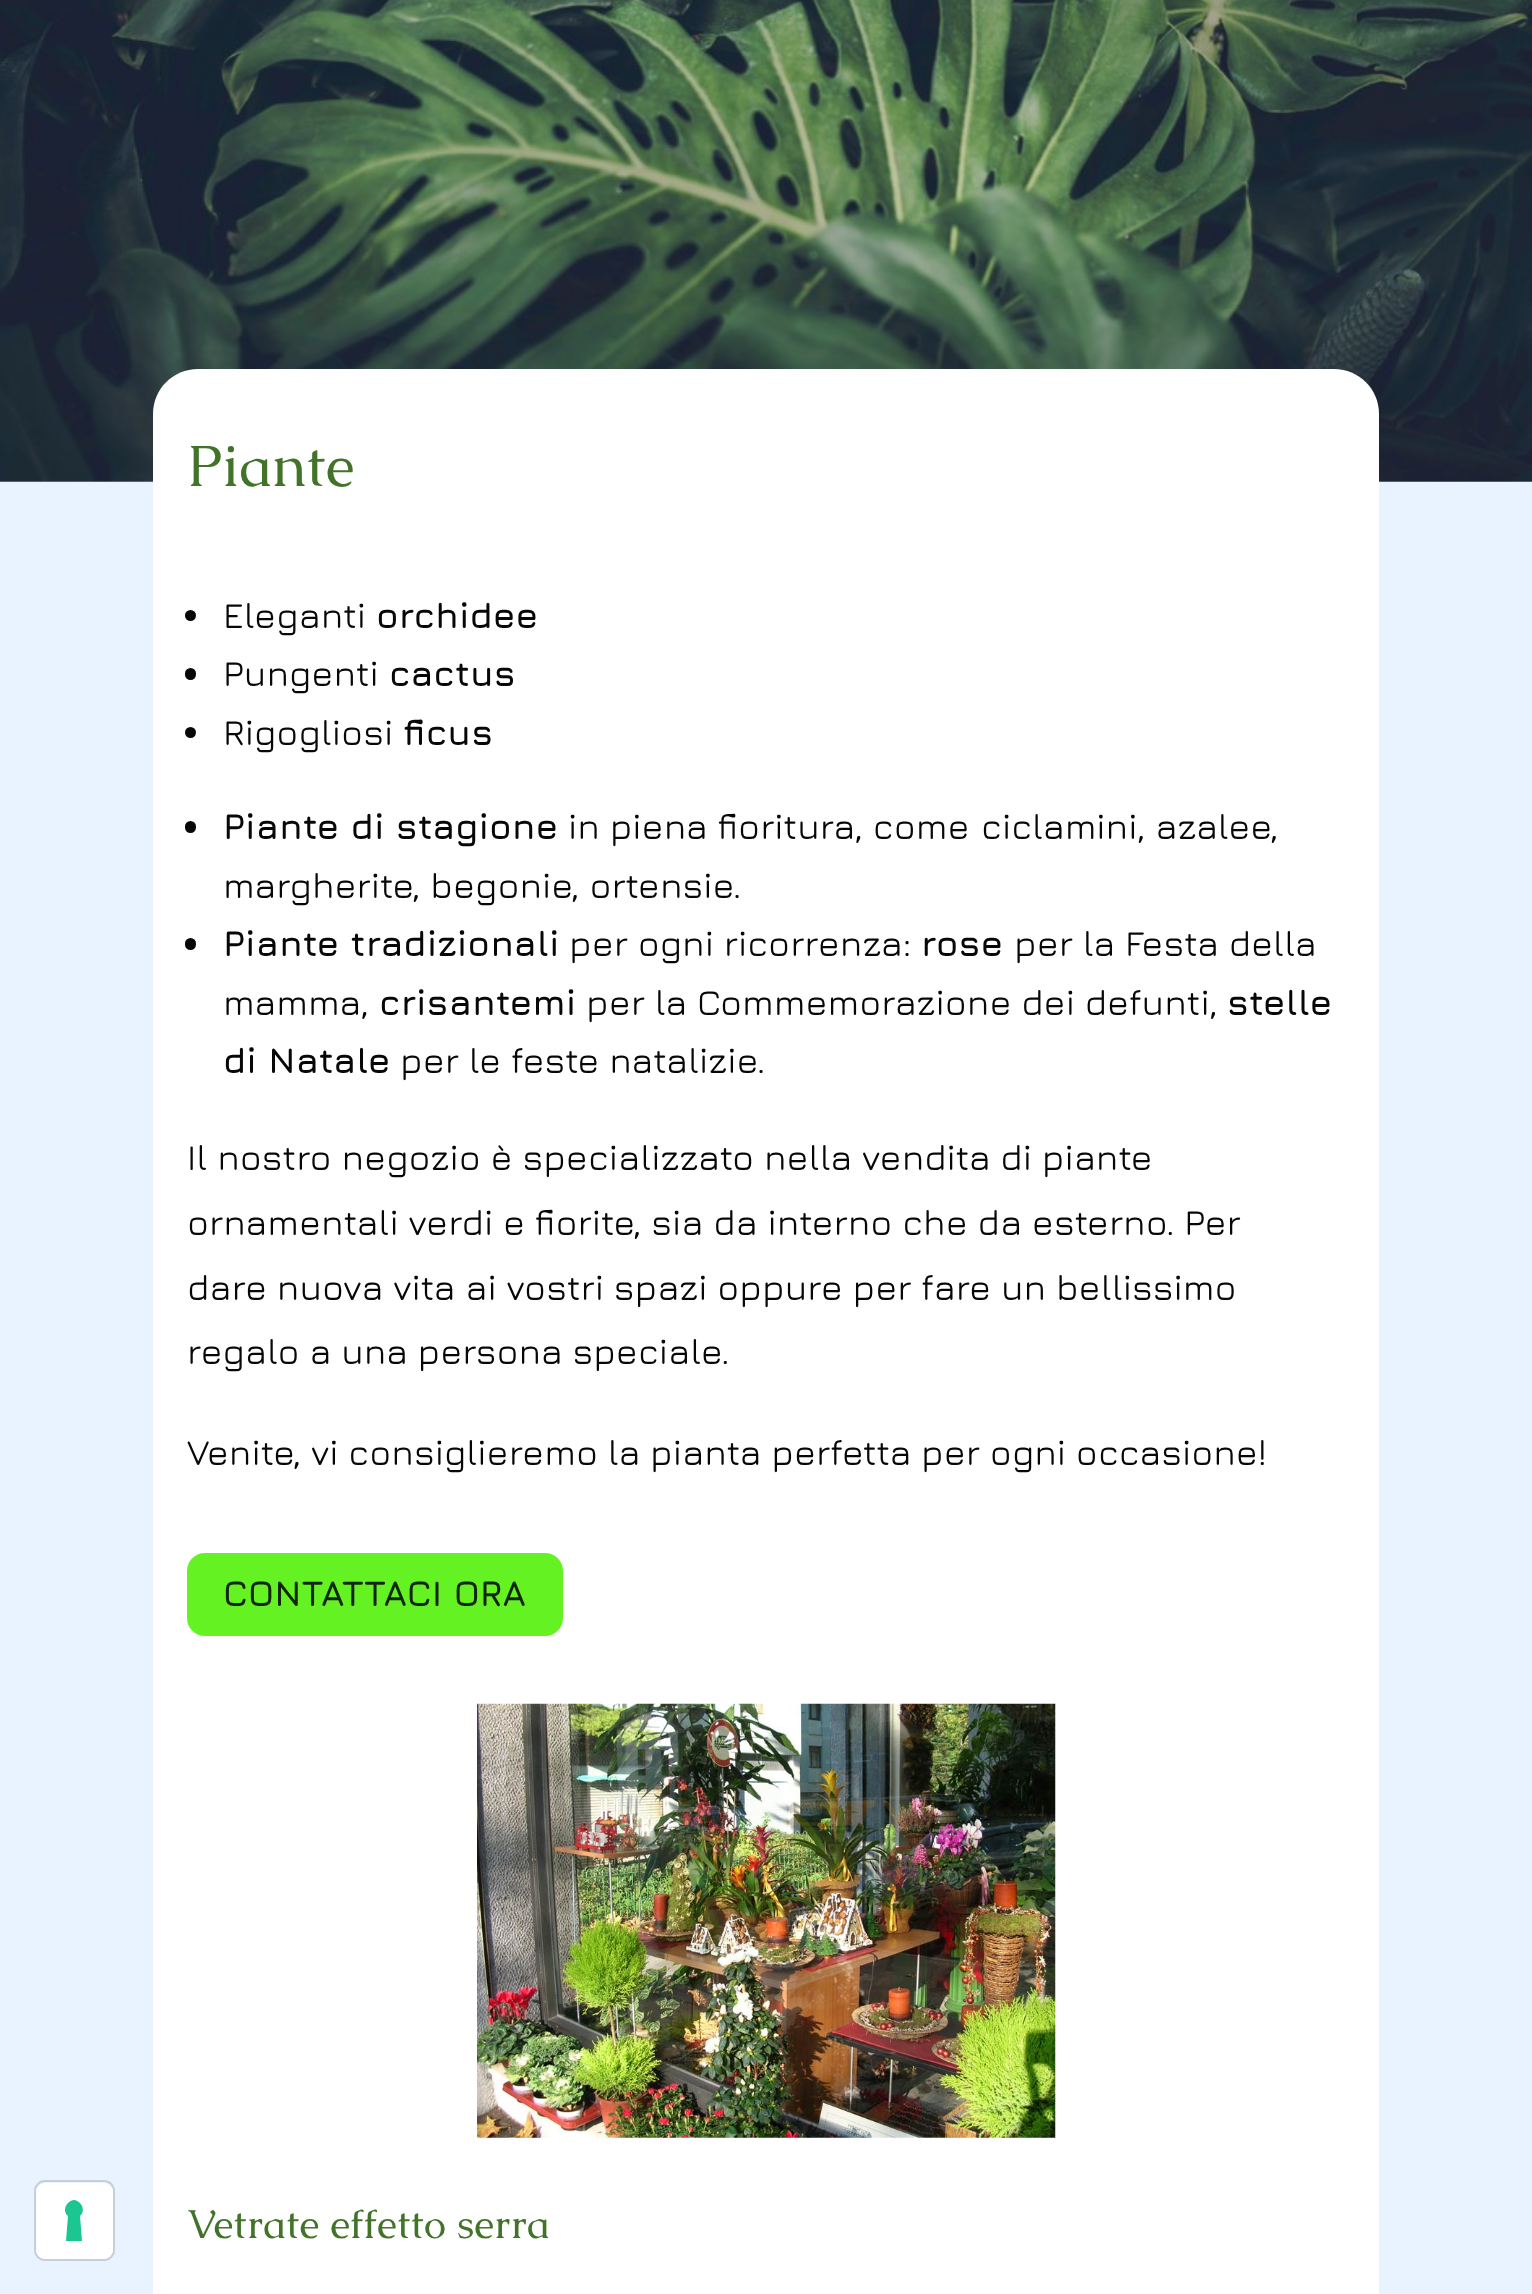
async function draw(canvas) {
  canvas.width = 1532
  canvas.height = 2294
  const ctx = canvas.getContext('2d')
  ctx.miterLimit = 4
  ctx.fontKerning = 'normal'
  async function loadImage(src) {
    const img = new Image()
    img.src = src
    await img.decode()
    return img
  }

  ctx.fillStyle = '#fff'
  ctx.fillRect(0, 0, 1532, 2294)
  ctx.fillStyle = '#e9f3ff'
  ctx.fillRect(0, 482, 1532, 1812)
  ctx.beginPath()
  ctx.roundRect(35, 2181, 79, 79, 10)
  ctx.strokeStyle = '#c6cfd9'
  ctx.lineWidth = 2
  ctx.stroke()
  ctx.fillStyle = '#fff'
  ctx.beginPath()
  ctx.roundRect(36, 2183, 77, 76, 9)
  ctx.fill()
  ctx.fillStyle = '#1cc691'
  ctx.beginPath()
  ctx.moveTo(74, 2200)
  ctx.bezierCurveTo(82, 2201, 86, 2211, 80, 2216)
  ctx.lineTo(82, 2241)
  ctx.lineTo(66, 2241)
  ctx.lineTo(68, 2216)
  ctx.bezierCurveTo(62, 2211, 66, 2201, 74, 2200)
  ctx.closePath()
  ctx.fill('evenodd')
  ctx.drawImage(await loadImage('image0.png'), 0, 0, 1532, 482)
  ctx.fillStyle = '#fff'
  ctx.beginPath()
  ctx.moveTo(198, 369)
  ctx.lineTo(1334, 369)
  ctx.bezierCurveTo(1359, 369, 1379, 389, 1379, 414)
  ctx.lineTo(1379, 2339)
  ctx.lineTo(153, 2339)
  ctx.lineTo(153, 414)
  ctx.bezierCurveTo(153, 389, 173, 369, 198, 369)
  ctx.closePath()
  ctx.fill()
  ctx.font = '58.5px Caudex'
  ctx.fillStyle = '#417329'
  ctx.fillText('Piante', 187, 486)
  ctx.fillStyle = '#070707'
  ctx.beginPath()
  ctx.arc(190.5, 615.5, 5.5, 0, 2 * Math.PI)
  ctx.fill()
  ctx.font = '300 36px Jura'
  ctx.fillText('Eleganti', 223, 628)
  ctx.font = '300 36px "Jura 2"'
  ctx.fillText('orchidee', 376, 628)
  ctx.beginPath()
  ctx.roundRect(185, 668, 11, 12, 5.5)
  ctx.fill()
  ctx.font = '300 36px Jura'
  ctx.fillText('Pungenti', 223, 686)
  ctx.font = '300 36px "Jura 2"'
  ctx.fillText('cactus', 389, 686)
  ctx.beginPath()
  ctx.arc(190.5, 732.5, 5.5, 0, 2 * Math.PI)
  ctx.fill()
  ctx.font = '300 36px Jura'
  ctx.fillText('Rigogliosi', 223, 745)
  ctx.font = '300 36px "Jura 2"'
  ctx.fillText('ficus', 403, 745)
  ctx.beginPath()
  ctx.roundRect(185, 821, 11, 12, 5.5)
  ctx.fill()
  ctx.fillText('Piante di stagione', 223, 839)
  ctx.font = '300 36px Jura'
  ctx.fillText('in piena fioritura, come', 568, 839)
  ctx.fillText('ciclamini, azalee,', 981, 839)
  ctx.fillText('margherite, begonie, ortensie.', 223, 898)
  ctx.beginPath()
  ctx.roundRect(185, 938, 11, 12, 5.5)
  ctx.fill()
  ctx.font = '300 36px "Jura 2"'
  ctx.fillText('Piante tradizionali', 223, 956)
  ctx.font = '300 36px Jura'
  ctx.fillText('per ogni ricorrenza:', 569, 956)
  ctx.font = '300 36px "Jura 2"'
  ctx.fillText('rose', 921, 956)
  ctx.font = '300 36px Jura'
  ctx.fillText('per la Festa della', 1014, 956)
  ctx.fillText('mamma,', 223, 1015)
  ctx.font = '300 36px "Jura 2"'
  ctx.fillText('crisantemi', 379, 1015)
  ctx.font = '300 36px Jura'
  ctx.fillText('per la Commemorazione dei defunti,', 586, 1015)
  ctx.font = '300 36px "Jura 2"'
  ctx.fillText('stelle', 1227, 1015)
  ctx.fillText('di Natale', 223, 1073)
  ctx.font = '300 36px Jura'
  ctx.fillText('per le feste natalizie.', 400, 1073)
  ctx.fillText('Il nostro negozio è specializzato nella vendita di piante', 187, 1170)
  ctx.fillText('ornamentali verdi e fiorite, sia da interno che da esterno. Per', 187, 1235)
  ctx.fillText('dare nuova vita ai vostri spazi oppure per fare un bellissimo', 187, 1300)
  ctx.fillText('regalo a una persona speciale.', 187, 1364)
  ctx.fillText('Venite, vi consiglieremo la pianta perfetta per ogni occasione!', 187, 1465)
  ctx.fillStyle = '#64f222'
  ctx.beginPath()
  ctx.roundRect(187, 1553, 376, 83, 18)
  ctx.fill()
  ctx.font = '300 36px "Jura 2"'
  ctx.fillStyle = '#12260d'
  ctx.fillText('CONTATTACI ORA', 223, 1606)
  ctx.drawImage(await loadImage('image1.png'), 477, 1703, 579, 435)
  ctx.font = '40.5px Caudex'
  ctx.fillStyle = '#417329'
  ctx.fillText('Vetrate effetto serra', 187, 2238)
}

draw(document.querySelector('canvas'))
